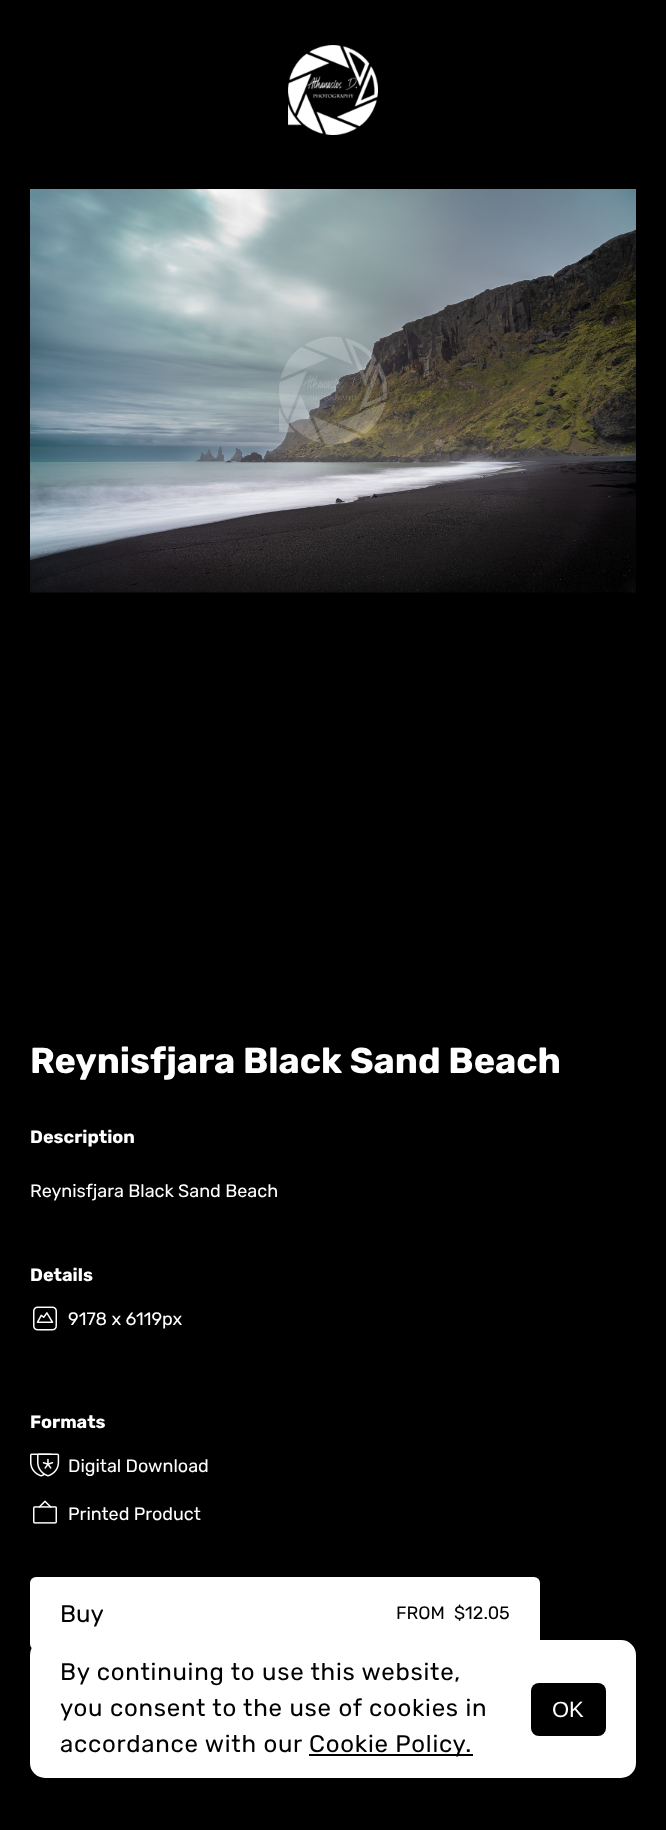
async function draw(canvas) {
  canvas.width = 666
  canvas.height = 1830
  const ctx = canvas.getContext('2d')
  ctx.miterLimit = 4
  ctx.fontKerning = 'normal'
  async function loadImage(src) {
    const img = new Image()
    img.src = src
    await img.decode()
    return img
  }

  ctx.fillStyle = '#000'
  ctx.fillRect(0, 0, 666, 1830)
  ctx.drawImage(await loadImage('image0.png'), 288, 45, 90, 90)
  ctx.drawImage(await loadImage('image1.png'), 30, 189, 606, 404)
  ctx.font = 'bold 36px Rubik'
  ctx.fillStyle = '#fff'
  ctx.fillText('Reynisfjara Black Sand Beach', 30, 1073)
  ctx.font = 'bold 18px Rubik'
  ctx.fillText('Description', 30, 1143)
  ctx.font = '18px Rubik'
  ctx.fillText('Reynisfjara Black Sand Beach', 30, 1197)
  ctx.font = 'bold 18px Rubik'
  ctx.fillText('Details', 30, 1281)
  ctx.drawImage(await loadImage('image2.png'), 33, 1306, 24, 25)
  ctx.font = '18px Rubik'
  ctx.fillText('9178 x 6119px', 68, 1325)
  ctx.font = 'bold 18px Rubik'
  ctx.fillText('Formats', 30, 1428)
  ctx.drawImage(await loadImage('image3.png'), 30, 1453, 30, 24)
  ctx.font = '18px Rubik'
  ctx.fillText('Digital Download', 68, 1472)
  ctx.drawImage(await loadImage('image4.png'), 33, 1500, 24, 24)
  ctx.fillText('Printed Product', 68, 1520)
  ctx.beginPath()
  ctx.roundRect(30, 1577, 510, 73, 6)
  ctx.fill()
  ctx.font = '24px Rubik'
  ctx.fillStyle = '#000'
  ctx.fillText('Buy', 60, 1622)
  ctx.font = '18px Rubik'
  ctx.fillText('FROM', 396, 1619)
  ctx.fillText('$12.05', 454, 1619)
  ctx.fillStyle = '#fff'
  ctx.beginPath()
  ctx.roundRect(30, 1640, 606, 138, 15)
  ctx.fill()
  ctx.letterSpacing = '0.75px'
  ctx.font = '24px Rubik'
  ctx.fillStyle = '#000'
  ctx.fillText('By continuing to use this website,', 60, 1680)
  ctx.fillText('you consent to the use of cookies in', 60, 1716)
  ctx.fillText('accordance with our', 60, 1752)
  ctx.fillRect(309, 1754, 164, 2)
  ctx.fillText('Cookie Policy.', 309, 1752)
  ctx.beginPath()
  ctx.roundRect(531, 1683, 75, 53, 8)
  ctx.fill()
  ctx.letterSpacing = '0px'
  ctx.font = '22px Liberation Sans'
  ctx.fillStyle = '#fff'
  ctx.fillText('OK', 552, 1717)
}

draw(document.querySelector('canvas'))
